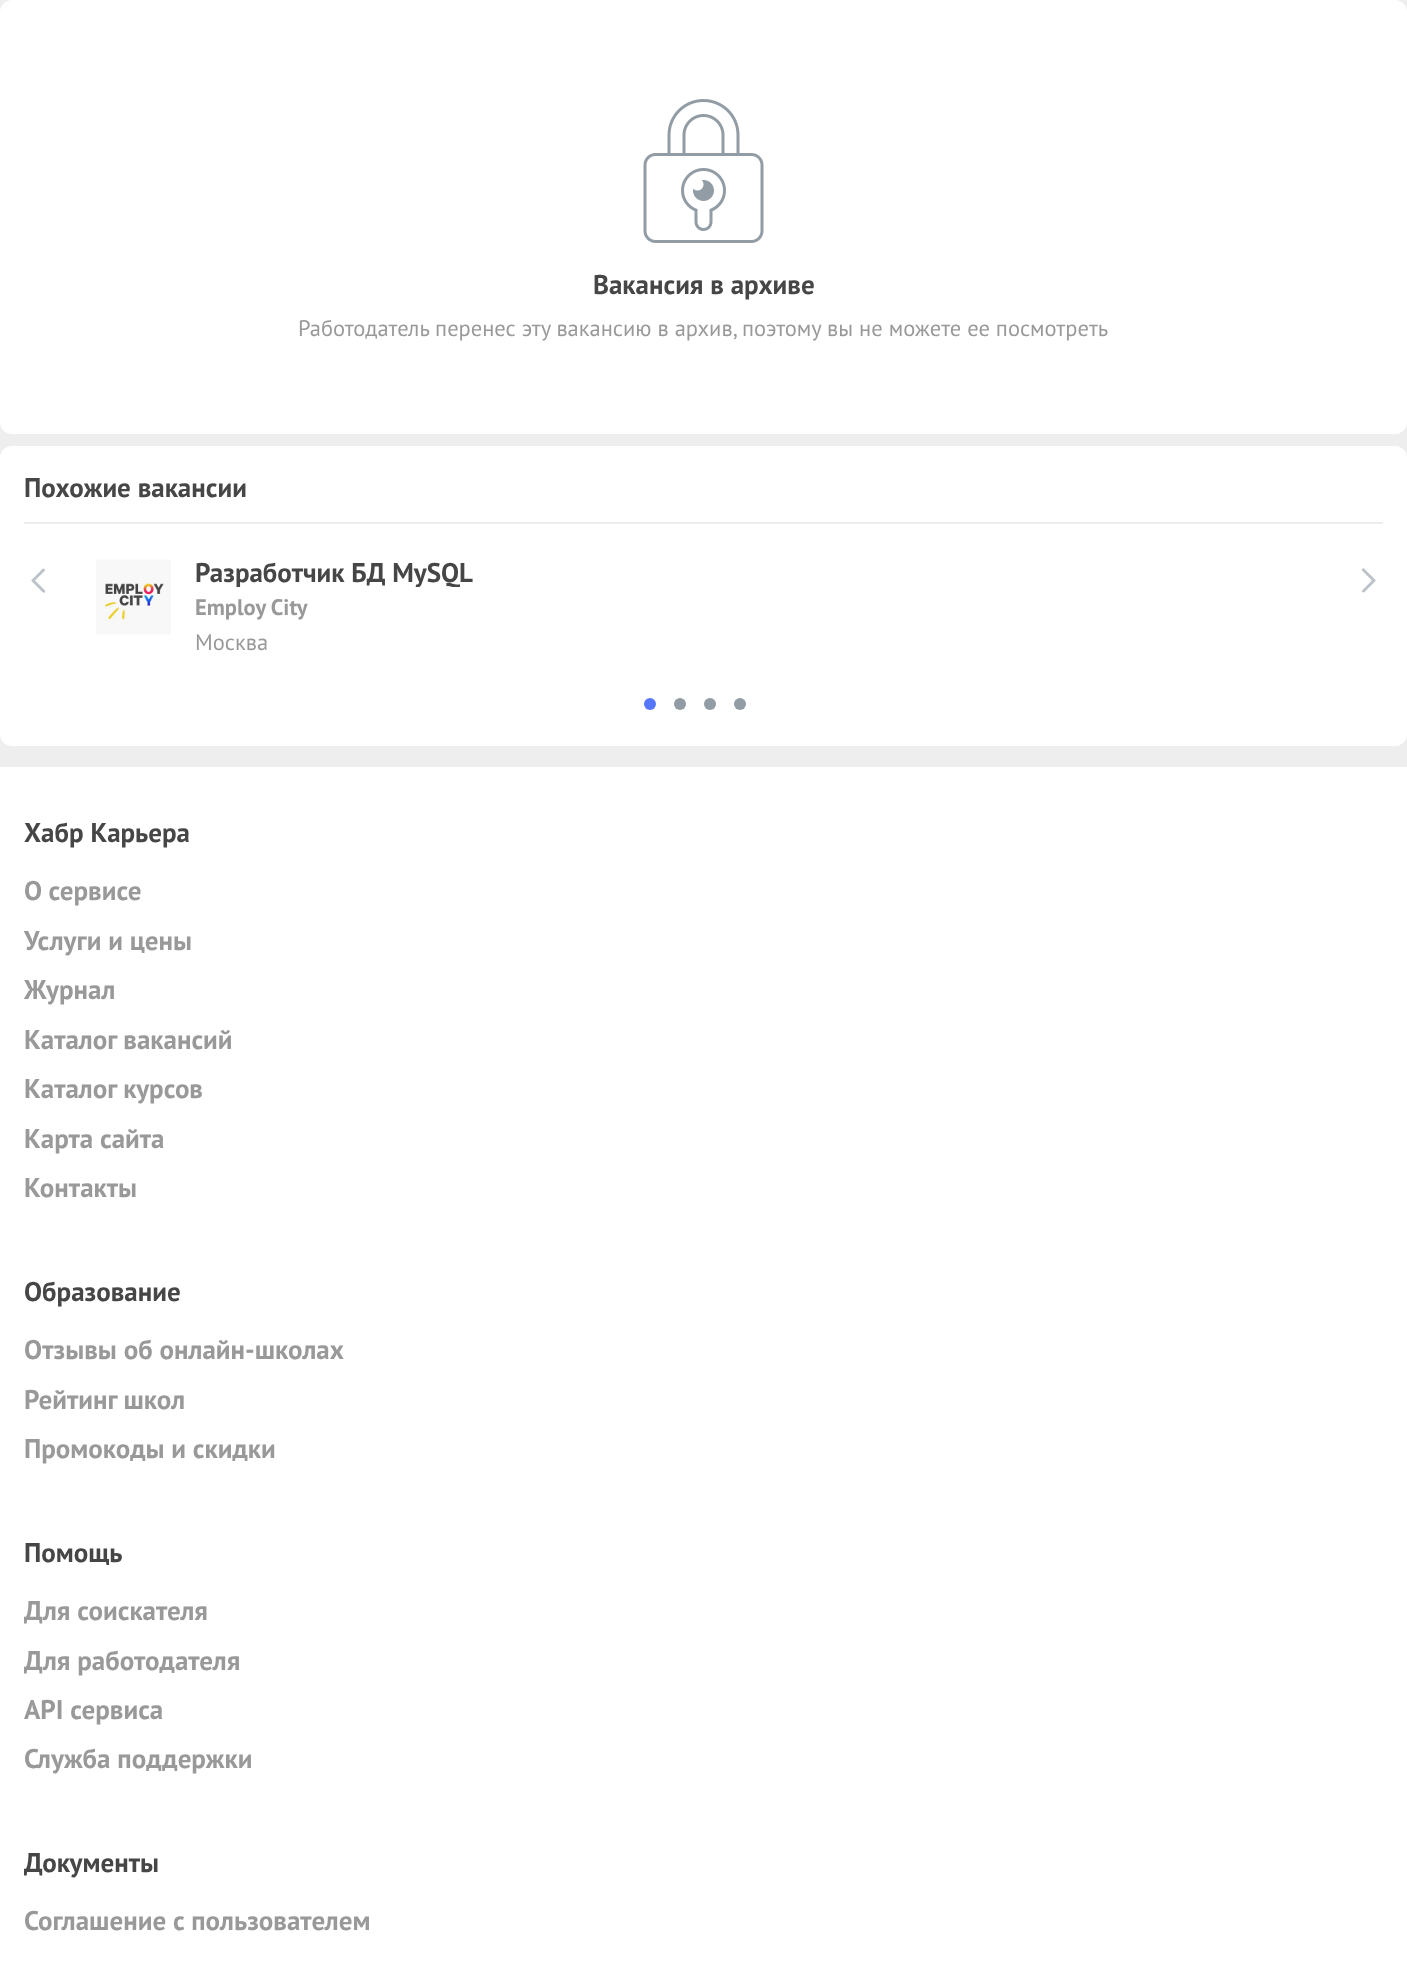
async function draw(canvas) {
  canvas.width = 1407
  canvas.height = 1971
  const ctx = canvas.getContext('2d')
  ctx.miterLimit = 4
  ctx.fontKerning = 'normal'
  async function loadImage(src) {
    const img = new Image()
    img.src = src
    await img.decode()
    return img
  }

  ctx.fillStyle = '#eee'
  ctx.fillRect(0, 0, 1407, 1971)
  ctx.fillStyle = '#fff'
  ctx.beginPath()
  ctx.roundRect(0, 0, 1407, 434, 12)
  ctx.fill()
  ctx.drawImage(await loadImage('image0.png'), 643, 99, 121, 144)
  ctx.font = 'bold 27px PT Sans'
  ctx.fillStyle = '#464646'
  ctx.fillText('Вакансия в архиве', 593, 294)
  ctx.font = '22.5px PT Sans'
  ctx.fillStyle = '#999'
  ctx.fillText('Работодатель перенес эту вакансию в архив, поэтому вы не можете ее посмотреть', 298, 336)
  ctx.fillStyle = '#fff'
  ctx.beginPath()
  ctx.roundRect(0, 446, 1407, 300, 12)
  ctx.fill()
  ctx.fillStyle = '#ededed'
  ctx.fillRect(24, 522, 1359, 2)
  ctx.font = 'bold 27px PT Sans'
  ctx.fillStyle = '#464646'
  ctx.fillText('Похожие вакансии', 24, 497)
  ctx.drawImage(await loadImage('image1.png'), 31, 568, 15, 25)
  ctx.drawImage(await loadImage('image2.png'), 96, 559, 75, 76)
  ctx.save()
  ctx.beginPath()
  ctx.rect(195, 560, 1116, 27)
  ctx.clip()
  ctx.fillText('Разработчик БД MySQL', 195, 582)
  ctx.restore()
  ctx.font = 'bold 22.5px PT Sans'
  ctx.fillStyle = '#999'
  ctx.fillText('Employ City', 195, 615)
  ctx.font = '22.5px PT Sans'
  ctx.fillText('Москва', 195, 650)
  ctx.drawImage(await loadImage('image3.png'), 1361, 568, 15, 25)
  ctx.fillStyle = '#5677fc'
  ctx.beginPath()
  ctx.arc(650, 704, 6, 0, 2 * Math.PI)
  ctx.fill()
  ctx.fillStyle = '#929ca5'
  ctx.beginPath()
  ctx.arc(680, 704, 6, 0, 2 * Math.PI)
  ctx.fill()
  ctx.beginPath()
  ctx.arc(710, 704, 6, 0, 2 * Math.PI)
  ctx.fill()
  ctx.beginPath()
  ctx.arc(740, 704, 6, 0, 2 * Math.PI)
  ctx.fill()
  ctx.fillStyle = '#fff'
  ctx.fillRect(0, 767, 1407, 1204)
  ctx.font = 'bold 27px PT Sans'
  ctx.fillStyle = '#464646'
  ctx.fillText('Хабр Карьера', 24, 842)
  ctx.fillStyle = '#999'
  ctx.fillText('О сервисе', 24, 900)
  ctx.fillText('Услуги и цены', 24, 950)
  ctx.fillText('Журнал', 24, 999)
  ctx.fillText('Каталог вакансий', 24, 1049)
  ctx.fillText('Каталог курсов', 24, 1098)
  ctx.fillText('Карта сайта', 24, 1148)
  ctx.fillText('Контакты', 24, 1197)
  ctx.fillStyle = '#464646'
  ctx.fillText('Образование', 24, 1301)
  ctx.fillStyle = '#999'
  ctx.fillText('Отзывы об онлайн-школах', 24, 1359)
  ctx.fillText('Рейтинг школ', 24, 1409)
  ctx.fillText('Промокоды и скидки', 24, 1458)
  ctx.fillStyle = '#464646'
  ctx.fillText('Помощь', 24, 1562)
  ctx.fillStyle = '#999'
  ctx.fillText('Для соискателя', 24, 1620)
  ctx.fillText('Для работодателя', 24, 1670)
  ctx.fillText('API сервиса', 24, 1719)
  ctx.fillText('Служба поддержки', 24, 1768)
  ctx.fillStyle = '#464646'
  ctx.fillText('Документы', 24, 1872)
  ctx.fillStyle = '#999'
  ctx.fillText('Соглашение с пользователем', 24, 1930)
}

draw(document.querySelector('canvas'))
